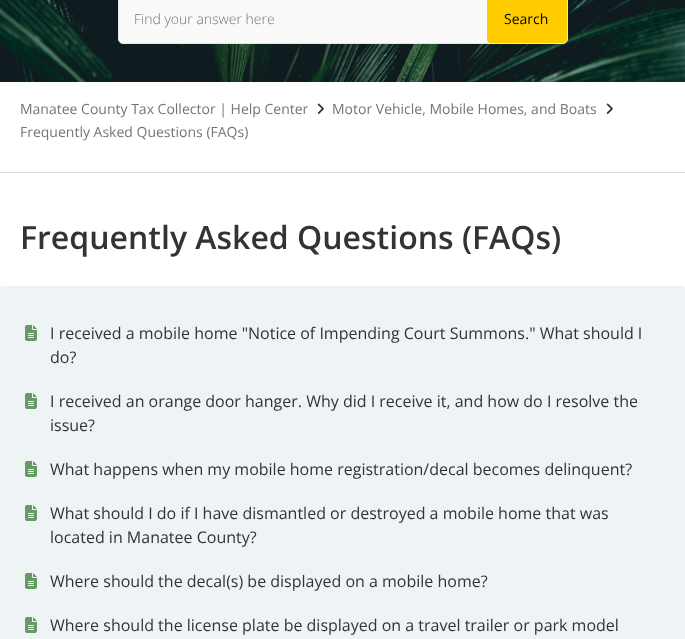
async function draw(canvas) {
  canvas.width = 685
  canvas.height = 639
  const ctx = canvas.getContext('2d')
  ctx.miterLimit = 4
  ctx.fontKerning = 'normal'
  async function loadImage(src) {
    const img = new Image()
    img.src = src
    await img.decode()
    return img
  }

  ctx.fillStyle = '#fff'
  ctx.fillRect(0, 0, 685, 639)
  ctx.drawImage(await loadImage('image0.png'), 0, 0, 685, 82)
  ctx.fillStyle = '#f9f9f9'
  ctx.beginPath()
  ctx.roundRect(118.5, -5.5, 449, 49, 4.5)
  ctx.fill()
  ctx.strokeStyle = '#e6e6e6'
  ctx.stroke()
  ctx.font = '300 14px Open Sans'
  ctx.fillStyle = '#747575'
  ctx.fillText('Find your answer here', 134, 24)
  ctx.fillStyle = '#fc0'
  ctx.beginPath()
  ctx.roundRect(487, -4, 80, 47, 4)
  ctx.fill()
  ctx.font = '14px Open Sans'
  ctx.fillStyle = '#000'
  ctx.fillText('Search', 504, 24)
  ctx.fillStyle = '#ddd'
  ctx.fillRect(0, 172, 685, 1)
  ctx.fillStyle = '#747575'
  ctx.fillText('Manatee County Tax Collector | Help Center', 20, 114)
  ctx.drawImage(await loadImage('image1.png'), 317, 103, 7, 11)
  ctx.fillText('Motor Vehicle, Mobile Homes, and Boats', 332, 114)
  ctx.drawImage(await loadImage('image1.png'), 606, 103, 7, 11)
  ctx.fillText('Frequently Asked Questions (FAQs)', 20, 137)
  ctx.font = '600 32px Open Sans'
  ctx.fillStyle = '#333'
  ctx.fillText('Frequently Asked Questions (FAQs)', 20, 249)
  ctx.fillStyle = '#eef3f6'
  ctx.beginPath()
  ctx.roundRect(0, 286, 685, 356, 3)
  ctx.fill()
  ctx.drawImage(await loadImage('image2.png'), 25, 325, 12, 16)
  ctx.font = '16px Open Sans'
  ctx.fillStyle = '#333'
  ctx.fillText('I received a mobile home "Notice of Impending Court Summons." What should I', 50, 339)
  ctx.fillText('do?', 50, 363)
  ctx.drawImage(await loadImage('image2.png'), 25, 393, 12, 16)
  ctx.fillText('I received an orange door hanger. Why did I receive it, and how do I resolve the', 50, 407)
  ctx.fillText('issue?', 50, 431)
  ctx.drawImage(await loadImage('image2.png'), 25, 461, 12, 16)
  ctx.fillText('What happens when my mobile home registration/decal becomes delinquent?', 50, 475)
  ctx.drawImage(await loadImage('image2.png'), 25, 505, 12, 16)
  ctx.fillText('What should I do if I have dismantled or destroyed a mobile home that was', 50, 519)
  ctx.fillText('located in Manatee County?', 50, 543)
  ctx.drawImage(await loadImage('image2.png'), 25, 573, 12, 16)
  ctx.fillText('Where should the decal(s) be displayed on a mobile home?', 50, 587)
  ctx.drawImage(await loadImage('image2.png'), 25, 617, 12, 16)
  ctx.fillText('Where should the license plate be displayed on a travel trailer or park model', 50, 631)
}

draw(document.querySelector('canvas'))
